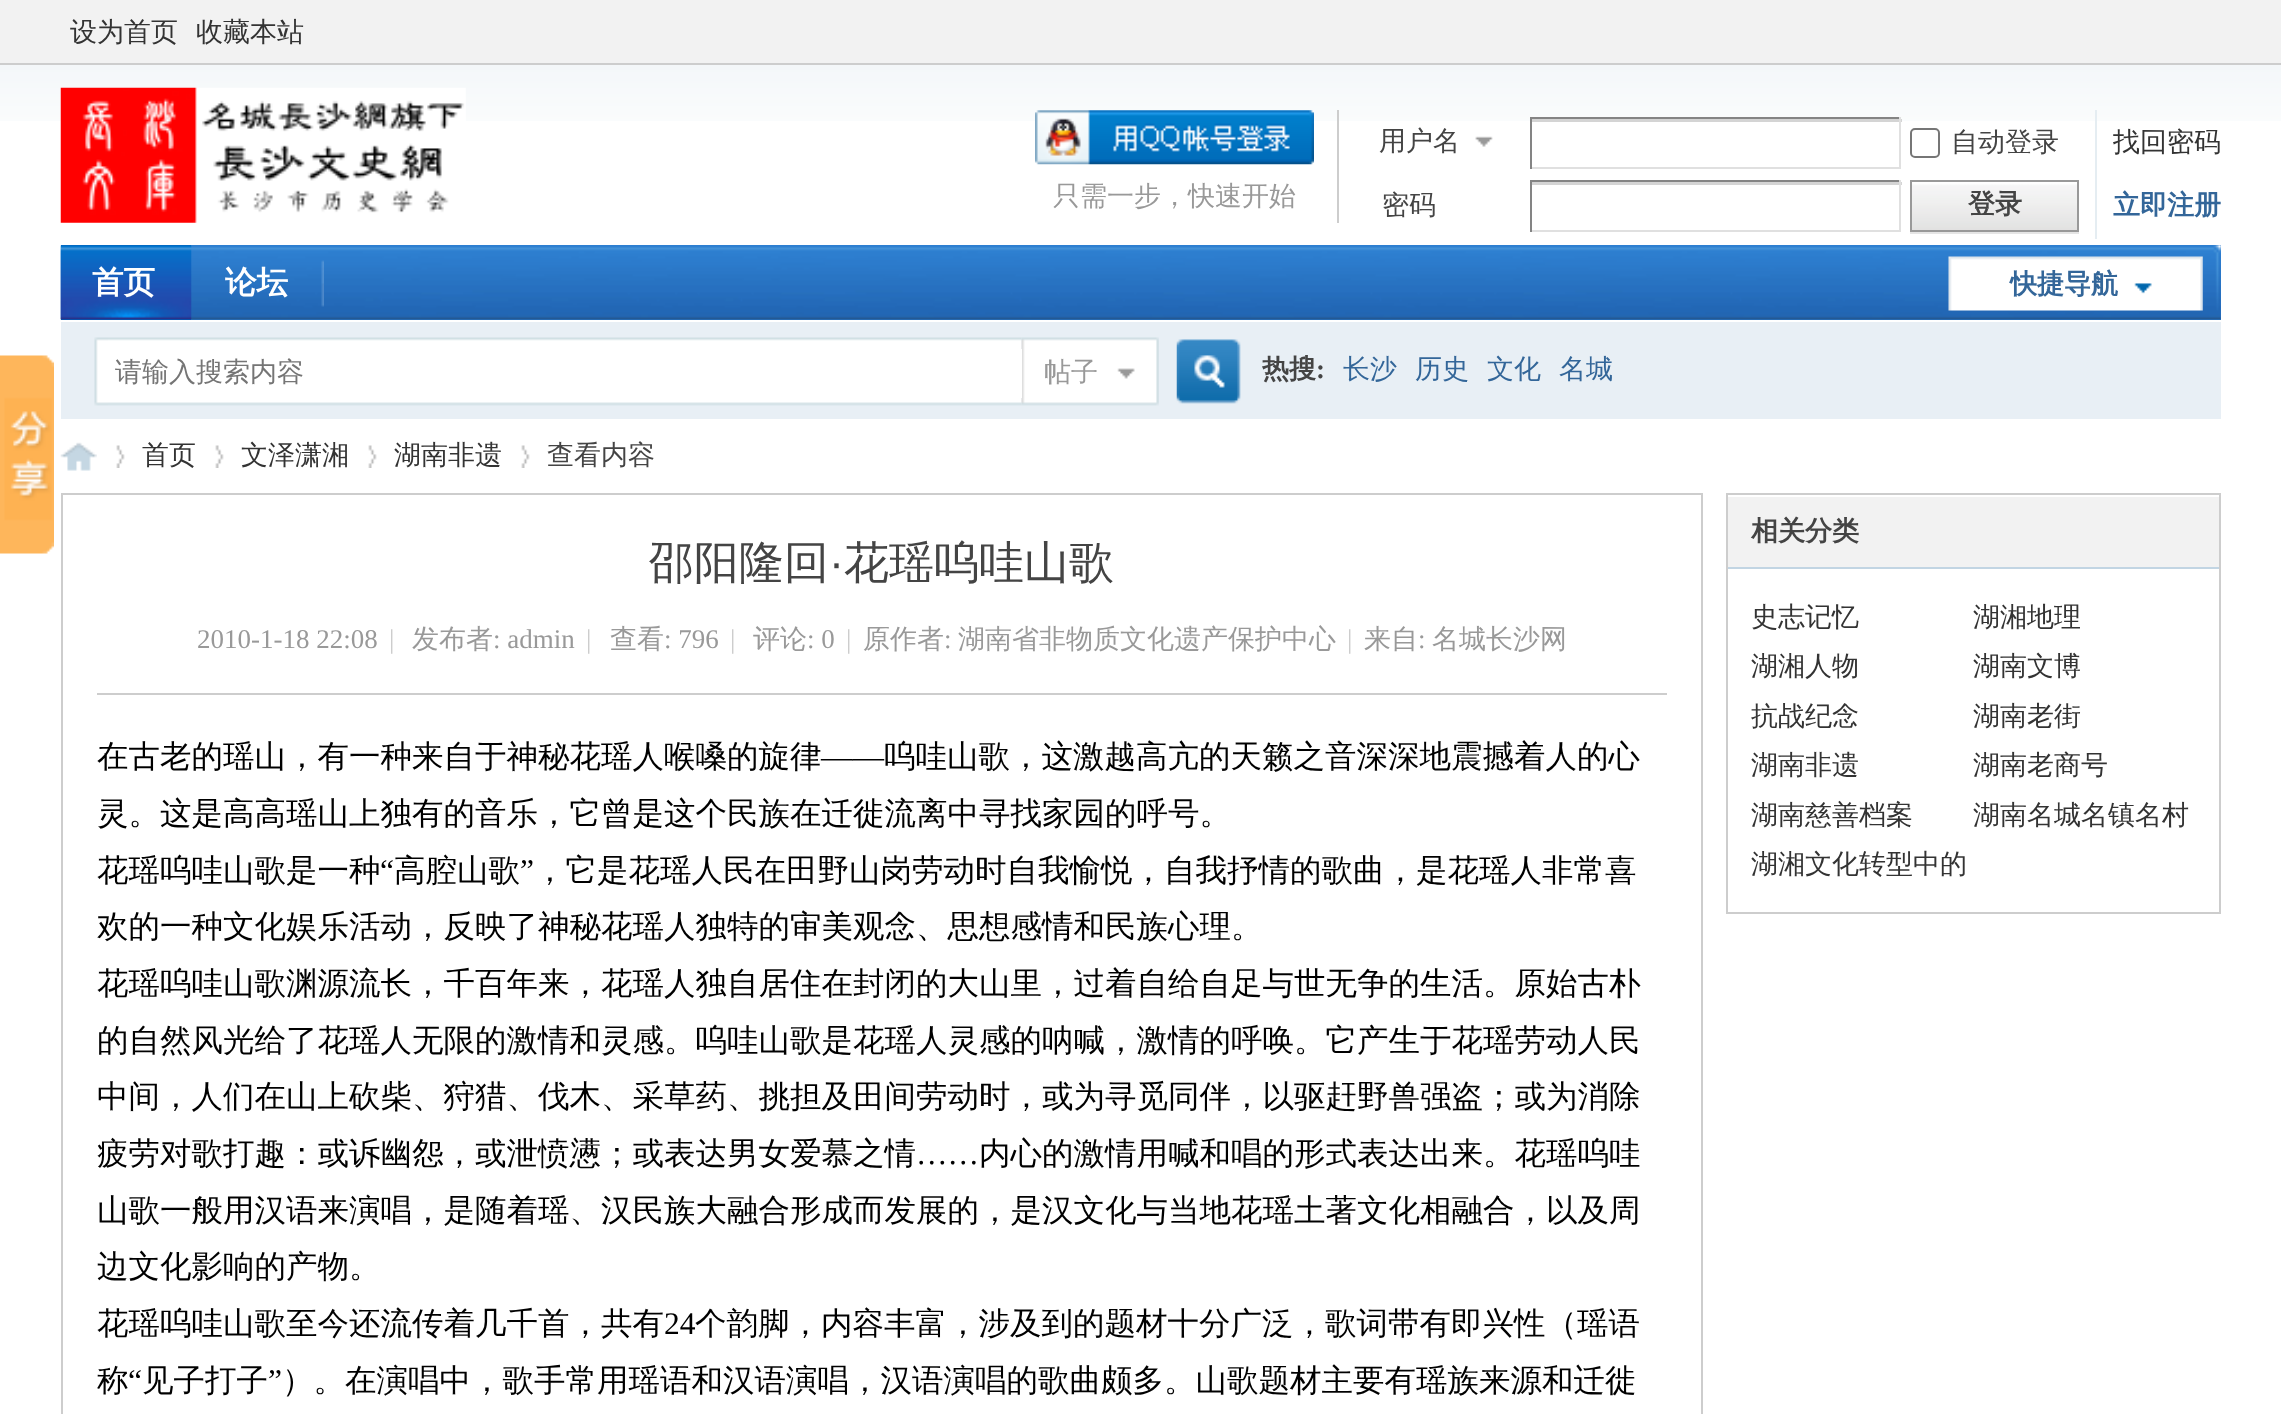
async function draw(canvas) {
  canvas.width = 2281
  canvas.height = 1414
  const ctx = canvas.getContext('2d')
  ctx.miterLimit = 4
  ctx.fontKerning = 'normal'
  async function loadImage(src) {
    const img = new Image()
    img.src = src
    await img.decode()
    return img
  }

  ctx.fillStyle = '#fff'
  ctx.fillRect(0, 0, 2281, 1414)
  ctx.drawImage(await loadImage('image0.png'), 0, 65, 2281, 56)
  ctx.fillStyle = '#f2f2f2'
  ctx.fillRect(0, 0, 2281, 63)
  ctx.fillStyle = '#cdcdcd'
  ctx.fillRect(0, 63, 2281, 2)
  ctx.font = '500 27px WenQuanYi Zen Hei'
  ctx.fillStyle = '#333'
  ctx.fillText('设为首页', 70, 41)
  ctx.fillText('收藏本站', 196, 41)
  ctx.drawImage(await loadImage('image1.png'), 60, 87, 406, 136)
  ctx.fillStyle = '#cdcdcd'
  ctx.fillRect(1337, 110, 2, 113)
  ctx.drawImage(await loadImage('image2.png'), 1035, 110, 279, 55)
  ctx.fillStyle = '#999'
  ctx.fillText('只需一步，快速开始', 1053, 205)
  ctx.drawImage(await loadImage('image3.png'), 1475, 136, 18, 11)
  ctx.fillStyle = '#444'
  ctx.fillText('用户名', 1379, 150)
  ctx.fillStyle = '#d4d4d4'
  ctx.fillRect(1530, 119, 372, 3)
  ctx.fillStyle = '#848484'
  ctx.fillRect(1530, 117, 371, 2)
  ctx.fillStyle = '#e0e0e0'
  ctx.fillRect(1899, 117, 2, 52)
  ctx.fillRect(1530, 167, 371, 2)
  ctx.fillStyle = '#848484'
  ctx.fillRect(1530, 117, 2, 52)
  ctx.beginPath()
  ctx.roundRect(1911, 129, 28, 28, 4)
  ctx.strokeStyle = '#767676'
  ctx.lineWidth = 2
  ctx.stroke()
  ctx.fillStyle = '#444'
  ctx.fillText('自动登录', 1951, 151)
  ctx.fillStyle = '#333'
  ctx.fillText('找回密码', 2113, 151)
  ctx.fillStyle = '#444'
  ctx.fillText('密码', 1382, 214)
  ctx.fillStyle = '#d4d4d4'
  ctx.fillRect(1530, 182, 372, 3)
  ctx.fillStyle = '#848484'
  ctx.fillRect(1530, 180, 371, 2)
  ctx.fillStyle = '#e0e0e0'
  ctx.fillRect(1899, 180, 2, 52)
  ctx.fillRect(1530, 230, 371, 2)
  ctx.fillStyle = '#848484'
  ctx.fillRect(1530, 180, 2, 52)
  ctx.fillStyle = '#e5edf2'
  ctx.fillRect(2095, 110, 2, 129)
  ctx.fillStyle = '#e5e5e5'
  ctx.beginPath()
  ctx.moveTo(1910, 182)
  ctx.lineTo(1910, 234)
  ctx.lineTo(2079, 234)
  ctx.lineTo(2079, 232)
  ctx.lineTo(1910, 232)
  ctx.closePath()
  ctx.fill()
  ctx.drawImage(await loadImage('image4.png'), 1912, 182, 165, 48)
  ctx.strokeStyle = '#999'
  ctx.strokeRect(1911, 181, 167, 50)
  ctx.font = 'bold 27px WenQuanYi Zen Hei'
  ctx.fillStyle = '#444'
  ctx.fillText('登录', 1968, 213)
  ctx.fillStyle = '#369'
  ctx.fillText('立即注册', 2113, 214)
  ctx.fillStyle = '#2b7acd'
  ctx.fillRect(191, 245, 2030, 75)
  ctx.drawImage(await loadImage('image5.png'), 60, 245, 2161, 75)
  ctx.fillStyle = '#005ab4'
  ctx.fillRect(61, 245, 130, 75)
  ctx.drawImage(await loadImage('image6.png'), 60, 245, 132, 75)
  ctx.font = 'bold 31.5px WenQuanYi Zen Hei'
  ctx.fillStyle = '#fff'
  ctx.fillText('首页', 92, 293)
  ctx.drawImage(await loadImage('image7.png'), 321, 260, 3, 47)
  ctx.fillText('论坛', 225, 293)
  ctx.drawImage(await loadImage('image8.png'), 1948, 256, 255, 55)
  ctx.font = 'bold 27px WenQuanYi Zen Hei'
  ctx.fillStyle = '#369'
  ctx.fillText('快捷导航', 2010, 293)
  ctx.fillStyle = '#e8eff5'
  ctx.fillRect(61, 322, 2160, 97)
  ctx.drawImage(await loadImage('image9.png'), 94, 337, 14, 69)
  ctx.drawImage(await loadImage('image10.png'), 108, 337, 914, 69)
  ctx.drawImage(await loadImage('image11.png'), 1021, 337, 138, 69)
  ctx.fillStyle = '#fff'
  ctx.fillRect(1021, 349, 1, 49)
  ctx.font = '500 27px WenQuanYi Zen Hei'
  ctx.fillStyle = '#757575'
  ctx.fillText('请输入搜索内容', 115, 381)
  ctx.fillStyle = '#999'
  ctx.fillText('帖子', 1044, 381)
  ctx.drawImage(await loadImage('image12.png'), 1176, 339, 65, 65)
  ctx.font = 'bold 27px WenQuanYi Zen Hei'
  ctx.fillStyle = '#444'
  ctx.fillText('热搜', 1262, 378)
  ctx.font = 'bold 27px Liberation Serif'
  ctx.fillText(':', 1316, 378)
  ctx.font = '500 27px WenQuanYi Zen Hei'
  ctx.fillStyle = '#369'
  ctx.fillText('长沙', 1343, 378)
  ctx.fillText('历史', 1415, 378)
  ctx.fillText('文化', 1487, 378)
  ctx.fillText('名城', 1559, 378)
  ctx.drawImage(await loadImage('image13.png'), 0, 355, 54, 199)
  ctx.drawImage(await loadImage('image14.png'), 60, 442, 37, 29)
  ctx.drawImage(await loadImage('image15.png'), 116, 445, 9, 23)
  ctx.fillStyle = '#333'
  ctx.fillText('首页', 142, 464)
  ctx.drawImage(await loadImage('image16.png'), 215, 445, 9, 23)
  ctx.fillText('文泽潇湘', 241, 464)
  ctx.drawImage(await loadImage('image15.png'), 368, 445, 9, 23)
  ctx.fillText('湖南非遗', 394, 464)
  ctx.drawImage(await loadImage('image15.png'), 521, 445, 9, 23)
  ctx.fillStyle = '#444'
  ctx.fillText('查看内容', 547, 464)
  ctx.strokeStyle = '#cdcdcd'
  ctx.strokeRect(62, 494, 1640, 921)
  ctx.fillStyle = '#cdcdcd'
  ctx.fillRect(97, 693, 1570, 2)
  ctx.font = '500 45px WenQuanYi Zen Hei'
  ctx.fillStyle = '#444'
  ctx.fillText('邵阳隆回', 649, 578)
  ctx.font = '45px Liberation Sans'
  ctx.fillText('·', 829, 578)
  ctx.font = '500 45px WenQuanYi Zen Hei'
  ctx.fillText('花瑶呜哇山歌', 844, 578)
  ctx.font = '27px Liberation Serif'
  ctx.fillStyle = '#999'
  ctx.fillText('2010-1-18 22:08', 197, 648)
  ctx.fillStyle = '#ccc'
  ctx.fillText('|', 389, 648)
  ctx.font = '500 27px WenQuanYi Zen Hei'
  ctx.fillStyle = '#999'
  ctx.fillText('发布者', 412, 648)
  ctx.font = '27px Liberation Serif'
  ctx.fillText(': admin', 493, 648)
  ctx.fillStyle = '#ccc'
  ctx.fillText('|', 586, 648)
  ctx.font = '500 27px WenQuanYi Zen Hei'
  ctx.fillStyle = '#999'
  ctx.fillText('查看', 610, 648)
  ctx.font = '27px Liberation Serif'
  ctx.fillText(': 796', 664, 648)
  ctx.fillStyle = '#ccc'
  ctx.fillText('|', 730, 648)
  ctx.font = '500 27px WenQuanYi Zen Hei'
  ctx.fillStyle = '#999'
  ctx.fillText('评论', 753, 648)
  ctx.font = '27px Liberation Serif'
  ctx.fillText(': 0', 807, 648)
  ctx.fillStyle = '#ccc'
  ctx.fillText('|', 846, 648)
  ctx.font = '500 27px WenQuanYi Zen Hei'
  ctx.fillStyle = '#999'
  ctx.fillText('原作者', 863, 648)
  ctx.font = '27px Liberation Serif'
  ctx.fillText(':', 944, 648)
  ctx.font = '500 27px WenQuanYi Zen Hei'
  ctx.fillText('湖南省非物质文化遗产保护中心', 958, 648)
  ctx.font = '27px Liberation Serif'
  ctx.fillStyle = '#ccc'
  ctx.fillText('|', 1347, 648)
  ctx.font = '500 27px WenQuanYi Zen Hei'
  ctx.fillStyle = '#999'
  ctx.fillText('来自', 1364, 648)
  ctx.font = '27px Liberation Serif'
  ctx.fillText(':', 1418, 648)
  ctx.font = '500 27px WenQuanYi Zen Hei'
  ctx.fillText('名城长沙网', 1432, 648)
  ctx.font = '500 31.5px WenQuanYi Zen Hei'
  ctx.fillStyle = '#000'
  ctx.fillText('在古老的瑶山，有一种来自于神秘花瑶人喉嗓的旋律', 97, 767)
  ctx.font = '31.5px Liberation Serif'
  ctx.fillText('――', 821, 767)
  ctx.font = '500 31.5px WenQuanYi Zen Hei'
  ctx.fillText('呜哇山歌，这激越高亢的天籁之音深深地震撼着人的心', 884, 767)
  ctx.fillText('灵。这是高高瑶山上独有的音乐，它曾是这个民族在迁徙流离中寻找家园的呼号。', 97, 824)
  ctx.fillText('花瑶呜哇山歌是一种', 97, 881)
  ctx.font = '31.5px Liberation Serif'
  ctx.fillText('“', 380, 881)
  ctx.font = '500 31.5px WenQuanYi Zen Hei'
  ctx.fillText('高腔山歌', 394, 881)
  ctx.font = '31.5px Liberation Serif'
  ctx.fillText('”', 520, 881)
  ctx.font = '500 31.5px WenQuanYi Zen Hei'
  ctx.fillText('，它是花瑶人民在田野山岗劳动时自我愉悦，自我抒情的歌曲，是花瑶人非常喜', 534, 881)
  ctx.fillText('欢的一种文化娱乐活动，反映了神秘花瑶人独特的审美观念、思想感情和民族心理。', 97, 937)
  ctx.fillText('花瑶呜哇山歌渊源流长，千百年来，花瑶人独自居住在封闭的大山里，过着自给自足与世无争的生活。原始古朴', 97, 994)
  ctx.fillText('的自然风光给了花瑶人无限的激情和灵感。呜哇山歌是花瑶人灵感的呐喊，激情的呼唤。它产生于花瑶劳动人民', 97, 1051)
  ctx.fillText('中间，人们在山上砍柴、狩猎、伐木、采草药、挑担及田间劳动时，或为寻觅同伴，以驱赶野兽强盗；或为消除', 97, 1107)
  ctx.fillText('疲劳对歌打趣：或诉幽怨，或泄愤懑；或表达男女爱慕之情', 97, 1164)
  ctx.font = '31.5px Liberation Serif'
  ctx.fillText('……', 916, 1164)
  ctx.font = '500 31.5px WenQuanYi Zen Hei'
  ctx.fillText('内心的激情用喊和唱的形式表达出来。花瑶呜哇', 979, 1164)
  ctx.fillText('山歌一般用汉语来演唱，是随着瑶、汉民族大融合形成而发展的，是汉文化与当地花瑶土著文化相融合，以及周', 97, 1221)
  ctx.fillText('边文化影响的产物。', 97, 1277)
  ctx.fillText('花瑶呜哇山歌至今还流传着几千首，共有', 97, 1334)
  ctx.font = '31.5px Liberation Serif'
  ctx.fillText('24', 664, 1334)
  ctx.font = '500 31.5px WenQuanYi Zen Hei'
  ctx.fillText('个韵脚，内容丰富，涉及到的题材十分广泛，歌词带有即兴性（瑶语', 695, 1334)
  ctx.fillText('称', 97, 1391)
  ctx.font = '31.5px Liberation Serif'
  ctx.fillText('“', 128, 1391)
  ctx.font = '500 31.5px WenQuanYi Zen Hei'
  ctx.fillText('见子打子', 142, 1391)
  ctx.font = '31.5px Liberation Serif'
  ctx.fillText('”', 268, 1391)
  ctx.font = '500 31.5px WenQuanYi Zen Hei'
  ctx.fillText('）。在演唱中，歌手常用瑶语和汉语演唱，汉语演唱的歌曲颇多。山歌题材主要有瑶族来源和迁徙', 282, 1391)
  ctx.strokeRect(1727, 494, 493, 419)
  ctx.fillStyle = '#f2f2f2'
  ctx.fillRect(1728, 497, 491, 70)
  ctx.fillStyle = '#c2d5e3'
  ctx.fillRect(1728, 567, 491, 2)
  ctx.font = 'bold 27px WenQuanYi Zen Hei'
  ctx.fillStyle = '#444'
  ctx.fillText('相关分类', 1751, 540)
  ctx.font = '500 27px WenQuanYi Zen Hei'
  ctx.fillStyle = '#333'
  ctx.fillText('史志记忆', 1751, 626)
  ctx.fillText('湖湘地理', 1973, 626)
  ctx.fillText('湖湘人物', 1751, 675)
  ctx.fillText('湖南文博', 1973, 675)
  ctx.fillText('抗战纪念', 1751, 725)
  ctx.fillText('湖南老街', 1973, 725)
  ctx.fillText('湖南非遗', 1751, 774)
  ctx.fillText('湖南老商号', 1973, 774)
  ctx.fillText('湖南慈善档案', 1751, 824)
  ctx.fillText('湖南名城名镇名村', 1973, 824)
  ctx.fillText('湖湘文化转型中的', 1751, 873)
}

draw(document.querySelector('canvas'))
